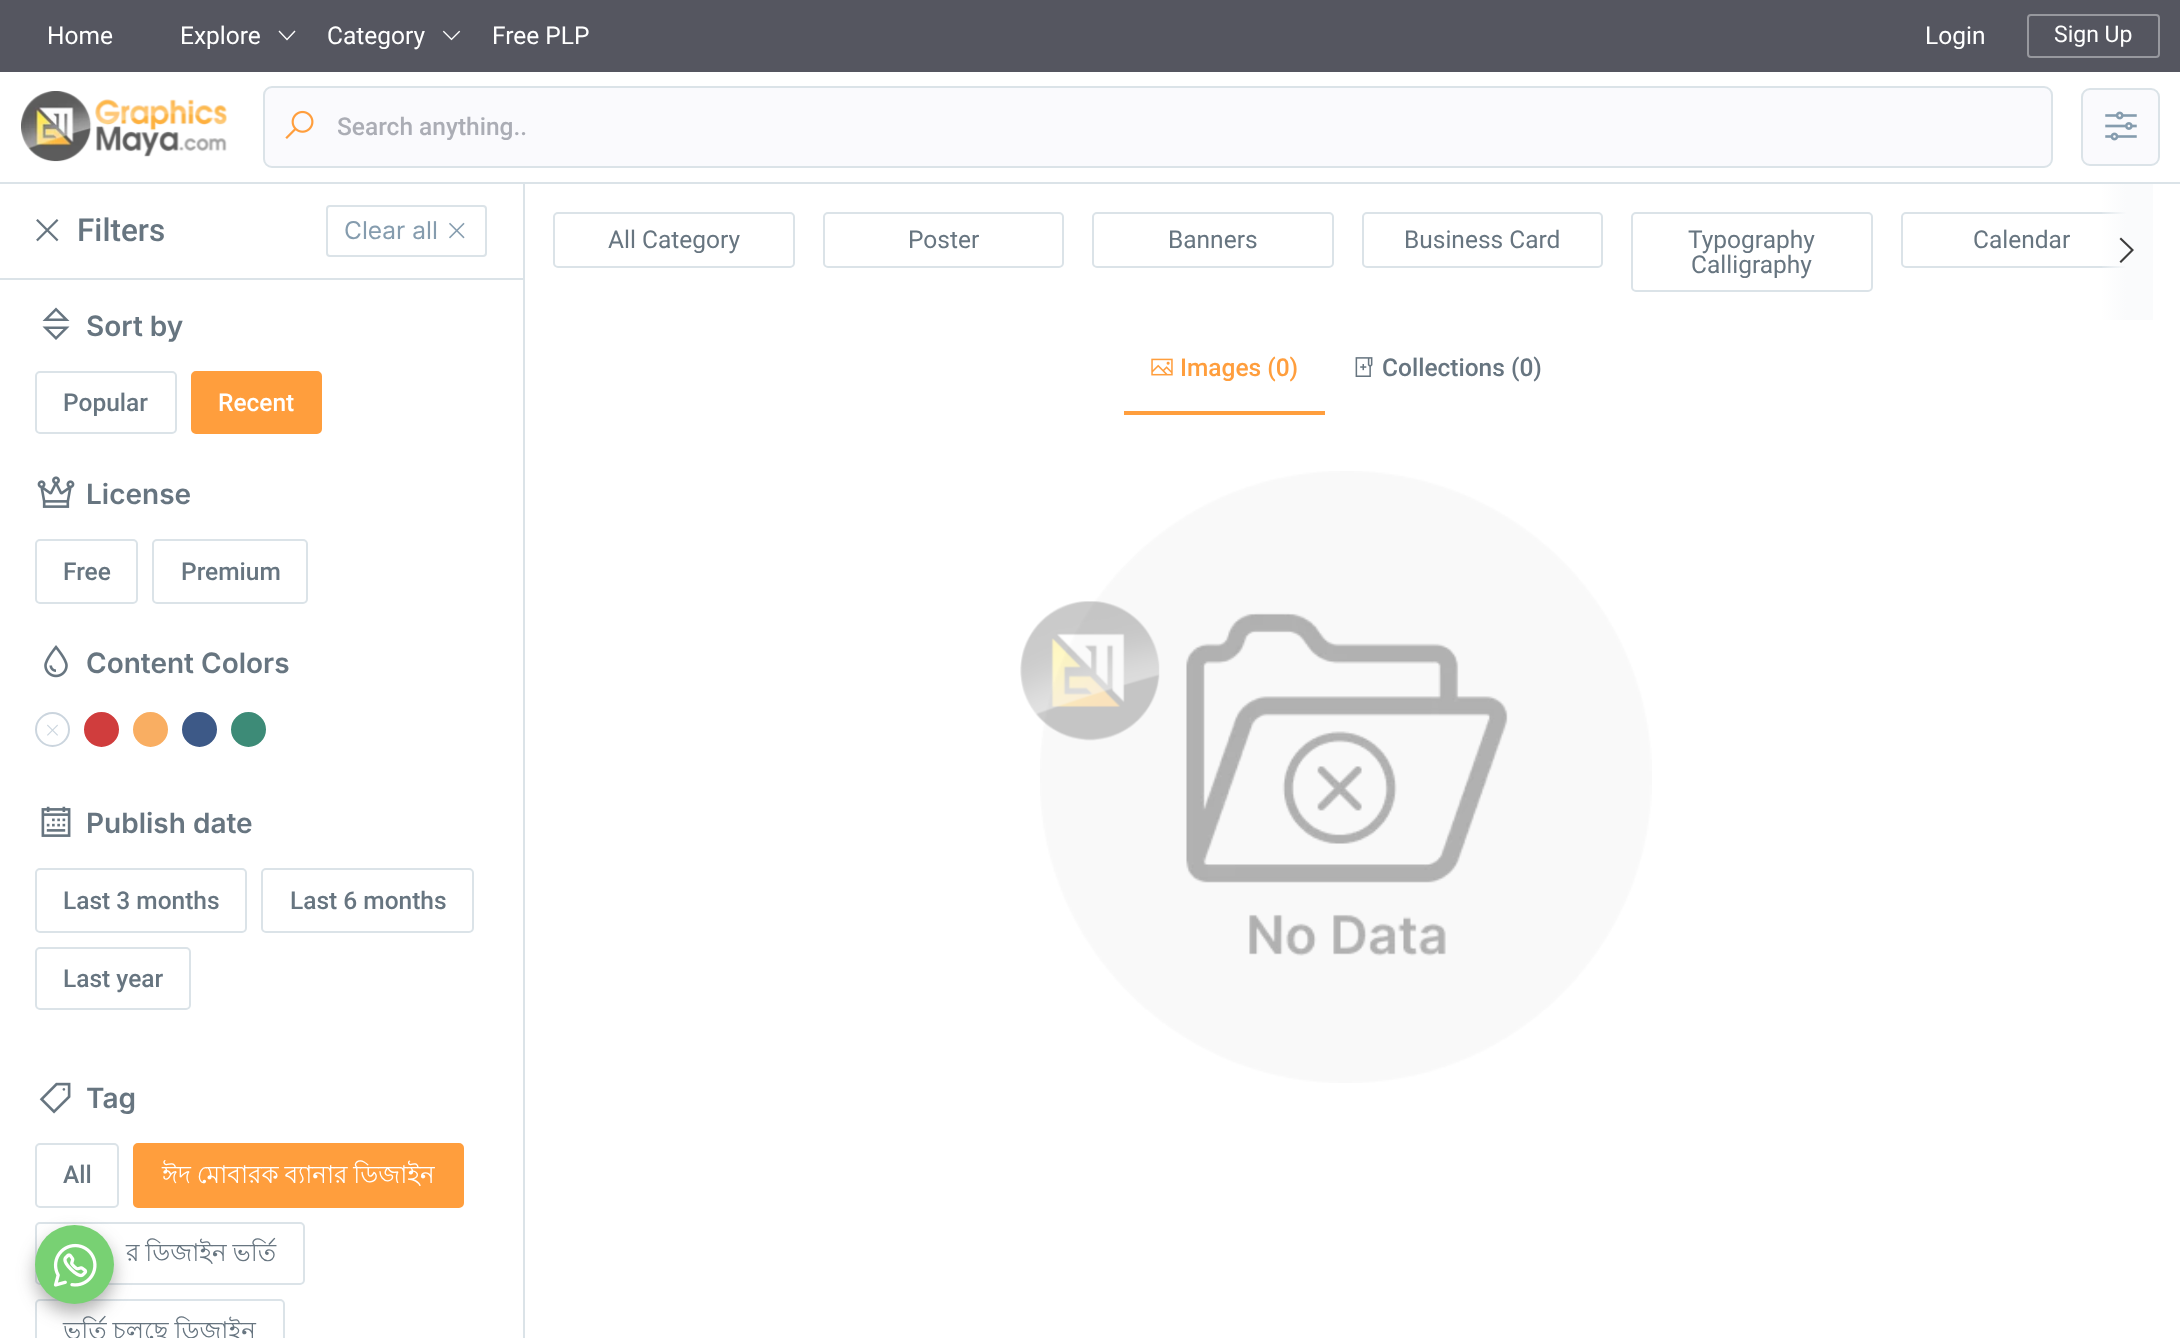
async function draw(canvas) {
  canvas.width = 2180
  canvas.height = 1338
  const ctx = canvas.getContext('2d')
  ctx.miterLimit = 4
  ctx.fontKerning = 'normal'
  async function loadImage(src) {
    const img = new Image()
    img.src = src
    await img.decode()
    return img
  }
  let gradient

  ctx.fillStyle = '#fff'
  ctx.fillRect(0, 0, 2180, 1338)
  ctx.fillStyle = '#555660'
  ctx.fillRect(0, 0, 2180, 72)
  ctx.font = '24.5px Roboto'
  ctx.fillStyle = '#fff'
  ctx.fillText('Home', 47, 44)
  ctx.fillText('Explore', 180, 44)
  ctx.beginPath()
  ctx.moveTo(279.5, 30.5)
  ctx.lineTo(278.5, 31.5)
  ctx.lineTo(287, 40.5)
  ctx.lineTo(295.5, 31.5)
  ctx.lineTo(294.5, 30.5)
  ctx.lineTo(287, 38.5)
  ctx.closePath()
  ctx.fill()
  ctx.fillText('Category', 327, 44)
  ctx.drawImage(await loadImage('image0.png'), 442, 30, 19, 11)
  ctx.fillText('Free PLP', 492, 44)
  ctx.fillText('Login', 1925, 44)
  ctx.beginPath()
  ctx.roundRect(2028, 15, 131, 42, 3)
  ctx.strokeStyle = '#97989e'
  ctx.lineWidth = 2
  ctx.stroke()
  ctx.font = '23px Roboto'
  ctx.fillText('Sign Up', 2054, 42)
  ctx.fillStyle = '#dbe3e8'
  ctx.fillRect(0, 182, 2180, 2)
  ctx.drawImage(await loadImage('image1.png'), 21, 91, 206, 71)
  ctx.fillStyle = '#fafafd'
  ctx.beginPath()
  ctx.roundRect(264, 87, 1788, 80, 8)
  ctx.fill()
  ctx.strokeStyle = '#dbe3e8'
  ctx.stroke()
  ctx.drawImage(await loadImage('image2.png'), 285, 110, 29, 29)
  ctx.save()
  ctx.beginPath()
  ctx.rect(338, 112, 1668, 28)
  ctx.clip()
  ctx.font = '500 24.5px Roboto'
  ctx.fillStyle = '#abadb5'
  ctx.fillText('Search anything..', 337, 135)
  ctx.restore()
  ctx.beginPath()
  ctx.roundRect(2082, 89, 77, 76, 8)
  ctx.fill()
  ctx.stroke()
  ctx.drawImage(await loadImage('image3.png'), 2105, 111, 32, 30)
  ctx.fillStyle = '#dbe3e8'
  ctx.fillRect(523, 184, 2, 1154)
  ctx.fillRect(0, 278, 523, 2)
  ctx.drawImage(await loadImage('image4.png'), 36, 219, 23, 23)
  ctx.font = '500 31.5px Roboto'
  ctx.fillStyle = '#677580'
  ctx.fillText('Filters', 77, 241)
  ctx.beginPath()
  ctx.roundRect(327, 206, 159, 50, 3)
  ctx.stroke()
  ctx.font = '24.5px Inter'
  ctx.fillStyle = '#859cae'
  ctx.fillText('Clear all', 344, 239)
  ctx.drawImage(await loadImage('image5.png'), 449, 222, 16, 17)
  ctx.fillStyle = '#677580'
  ctx.beginPath()
  ctx.moveTo(56, 307.5)
  ctx.lineTo(42.5, 321)
  ctx.lineTo(69.5, 321)
  ctx.closePath()
  ctx.moveTo(56, 311)
  ctx.lineTo(63.5, 318.5)
  ctx.lineTo(48.5, 318.5)
  ctx.closePath()
  ctx.moveTo(42.5, 326.5)
  ctx.lineTo(56, 340)
  ctx.lineTo(69.5, 326.5)
  ctx.closePath()
  ctx.moveTo(48.5, 329)
  ctx.lineTo(63.5, 329)
  ctx.lineTo(56, 336.5)
  ctx.closePath()
  ctx.fill()
  ctx.font = '600 28px Inter'
  ctx.fillText('Sort by', 86, 336)
  ctx.beginPath()
  ctx.roundRect(36, 372, 140, 61, 4)
  ctx.stroke()
  ctx.font = '500 24.5px Roboto'
  ctx.fillText('Popular', 63, 411)
  ctx.fillStyle = '#ff9e3d'
  ctx.beginPath()
  ctx.roundRect(192, 372, 129, 61, 4)
  ctx.fill()
  ctx.strokeStyle = '#ff9e3d'
  ctx.stroke()
  ctx.fillStyle = '#fff'
  ctx.fillText('Recent', 218, 411)
  ctx.drawImage(await loadImage('image6.png'), 37, 476, 38, 32)
  ctx.font = '600 28px Inter'
  ctx.fillStyle = '#677580'
  ctx.fillText('License', 86, 504)
  ctx.beginPath()
  ctx.roundRect(36, 540, 101, 63, 4)
  ctx.strokeStyle = '#dbe3e8'
  ctx.stroke()
  ctx.font = '500 24.5px Roboto'
  ctx.fillText('Free', 63, 580)
  ctx.beginPath()
  ctx.roundRect(153, 540, 154, 63, 4)
  ctx.stroke()
  ctx.fillText('Premium', 181, 580)
  ctx.drawImage(await loadImage('image7.png'), 44, 645, 24, 33)
  ctx.font = '600 28px Inter'
  ctx.fillText('Content Colors', 86, 673)
  ctx.beginPath()
  ctx.arc(52.5, 729.5, 16.5, 0, 2 * Math.PI)
  ctx.strokeStyle = '#cbd5de'
  ctx.stroke()
  ctx.drawImage(await loadImage('image8.png'), 47, 724, 11, 12)
  ctx.fillStyle = '#d03d3d'
  ctx.beginPath()
  ctx.arc(101.5, 729.5, 16.5, 0, 2 * Math.PI)
  ctx.fill()
  ctx.strokeStyle = '#d03d3d'
  ctx.stroke()
  ctx.fillStyle = '#f9ae62'
  ctx.beginPath()
  ctx.arc(150.5, 729.5, 16.5, 0, 2 * Math.PI)
  ctx.fill()
  ctx.strokeStyle = '#f9ae62'
  ctx.stroke()
  ctx.fillStyle = '#3d5987'
  ctx.beginPath()
  ctx.arc(199.5, 729.5, 16.5, 0, 2 * Math.PI)
  ctx.fill()
  ctx.strokeStyle = '#3d5987'
  ctx.stroke()
  ctx.fillStyle = '#3d8b77'
  ctx.beginPath()
  ctx.arc(248.5, 729.5, 16.5, 0, 2 * Math.PI)
  ctx.fill()
  ctx.strokeStyle = '#3d8b77'
  ctx.stroke()
  ctx.drawImage(await loadImage('image9.png'), 41, 806, 30, 31)
  ctx.fillStyle = '#677580'
  ctx.fillText('Publish date', 86, 833)
  ctx.beginPath()
  ctx.roundRect(36, 869, 210, 63, 4)
  ctx.strokeStyle = '#dbe3e8'
  ctx.stroke()
  ctx.font = '500 24.5px Roboto'
  ctx.fillText('Last 3 months', 63, 909)
  ctx.beginPath()
  ctx.roundRect(262, 869, 211, 63, 4)
  ctx.stroke()
  ctx.fillText('Last 6 months', 290, 909)
  ctx.beginPath()
  ctx.roundRect(36, 948, 154, 61, 4)
  ctx.stroke()
  ctx.fillText('Last year', 63, 987)
  ctx.drawImage(await loadImage('image10.png'), 39, 1082, 32, 32)
  ctx.font = '600 28px Inter'
  ctx.fillText('Tag', 86, 1108)
  ctx.beginPath()
  ctx.roundRect(36, 1144, 82, 63, 4)
  ctx.stroke()
  ctx.font = '500 24.5px Roboto'
  ctx.fillText('All', 63, 1183)
  ctx.fillStyle = '#ff9e3d'
  ctx.beginPath()
  ctx.roundRect(134, 1144, 329, 63, 4)
  ctx.fill()
  ctx.strokeStyle = '#ff9e3d'
  ctx.stroke()
  ctx.wordSpacing = '-1px'
  ctx.font = '24.5px Lohit Bengali'
  ctx.fillStyle = '#fff'
  ctx.fillText('ঈদ মোবারক ব্যানার ডিজাইন', 162, 1183)
  ctx.beginPath()
  ctx.roundRect(36, 1223, 268, 61, 4)
  ctx.strokeStyle = '#dbe3e8'
  ctx.stroke()
  ctx.fillStyle = '#677580'
  ctx.fillText('র ডিজাইন ভর্তি', 126, 1261)
  ctx.beginPath()
  ctx.roundRect(36, 1300, 248, 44, 4)
  ctx.stroke()
  ctx.fillText('ভর্তি চলছে ডিজাইন', 63, 1339)
  ctx.beginPath()
  ctx.roundRect(554, 213, 240, 54, 4)
  ctx.stroke()
  ctx.wordSpacing = '0px'
  ctx.font = '24.5px Roboto'
  ctx.fillText('All Category', 608, 248)
  ctx.beginPath()
  ctx.roundRect(824, 213, 239, 54, 4)
  ctx.stroke()
  ctx.fillText('Poster', 908, 248)
  ctx.beginPath()
  ctx.roundRect(1093, 213, 240, 54, 4)
  ctx.stroke()
  ctx.fillText('Banners', 1168, 248)
  ctx.beginPath()
  ctx.roundRect(1363, 213, 239, 54, 4)
  ctx.stroke()
  ctx.fillText('Business Card', 1404, 248)
  ctx.beginPath()
  ctx.roundRect(1632, 213, 240, 78, 4)
  ctx.stroke()
  ctx.fillText('Typography', 1688, 248)
  ctx.fillText('Calligraphy', 1691, 273)
  ctx.beginPath()
  ctx.roundRect(1902, 213, 239, 54, 4)
  ctx.stroke()
  ctx.fillText('Calendar', 1973, 248)
  gradient = ctx.createLinearGradient(2153, 252, 2100, 252)
  gradient.addColorStop(0.5, '#fafbfc')
  gradient.addColorStop(1, '#fafbfc00')
  ctx.fillStyle = gradient
  ctx.fillRect(2102, 184, 51, 136)
  ctx.fillStyle = '#3d3d3d'
  ctx.beginPath()
  ctx.moveTo(2121, 237.5)
  ctx.lineTo(2119.5, 239)
  ctx.lineTo(2131, 250)
  ctx.lineTo(2119.5, 261.5)
  ctx.lineTo(2121, 263)
  ctx.lineTo(2134, 250)
  ctx.closePath()
  ctx.fill()
  ctx.drawImage(await loadImage('image11.png'), 1151, 358, 22, 18)
  ctx.font = '500 24.5px Roboto'
  ctx.fillStyle = '#ff9e3d'
  ctx.fillText('Images (0)', 1180, 376)
  ctx.fillRect(1124, 411, 201, 4)
  ctx.drawImage(await loadImage('image12.png'), 1355, 357, 18, 20)
  ctx.fillStyle = '#677580'
  ctx.fillText('Collections (0)', 1382, 376)
  ctx.drawImage(await loadImage('image13.png'), 1040, 471, 612, 612)
  ctx.drawImage(await loadImage('image14.png'), 1020, 601, 140, 140)
  ctx.fillStyle = '#3d3d3d66'
  ctx.filter = 'blur(9px)'
  ctx.beginPath()
  ctx.roundRect(35, 1234, 79, 79, 39.5)
  ctx.fill()
  ctx.filter = 'none'
  ctx.fillStyle = '#78d173'
  ctx.beginPath()
  ctx.arc(74.5, 1264.5, 39.5, 0, 2 * Math.PI)
  ctx.fill()
  ctx.drawImage(await loadImage('image15.png'), 53, 1243, 44, 44)
}

draw(document.querySelector('canvas'))
